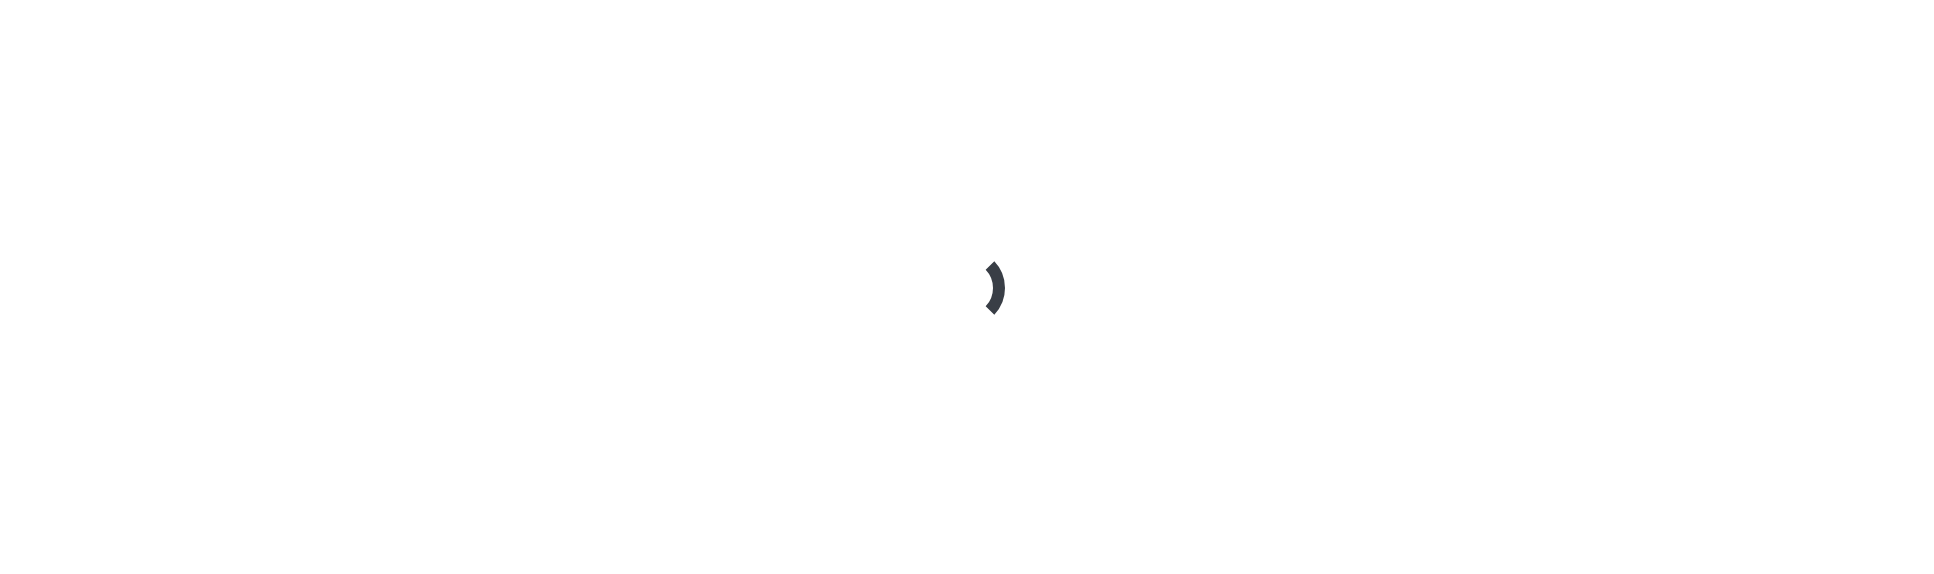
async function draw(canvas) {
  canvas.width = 1934
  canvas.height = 574
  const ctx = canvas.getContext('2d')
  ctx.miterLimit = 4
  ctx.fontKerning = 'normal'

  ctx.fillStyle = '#fff'
  ctx.fillRect(0, 0, 1934, 574)
  ctx.beginPath()
  ctx.moveTo(990, 265.5)
  ctx.bezierCurveTo(1002, 278, 1002, 298, 990, 310.5)
  ctx.moveTo(990, 265.5)
  ctx.bezierCurveTo(1002, 278, 1002, 298, 990, 310.5)
  ctx.moveTo(990, 265.5)
  ctx.bezierCurveTo(1002, 278, 1002, 298, 990, 310.5)
  ctx.strokeStyle = '#393e46'
  ctx.lineWidth = 12
  ctx.stroke()
}

draw(document.querySelector('canvas'))
